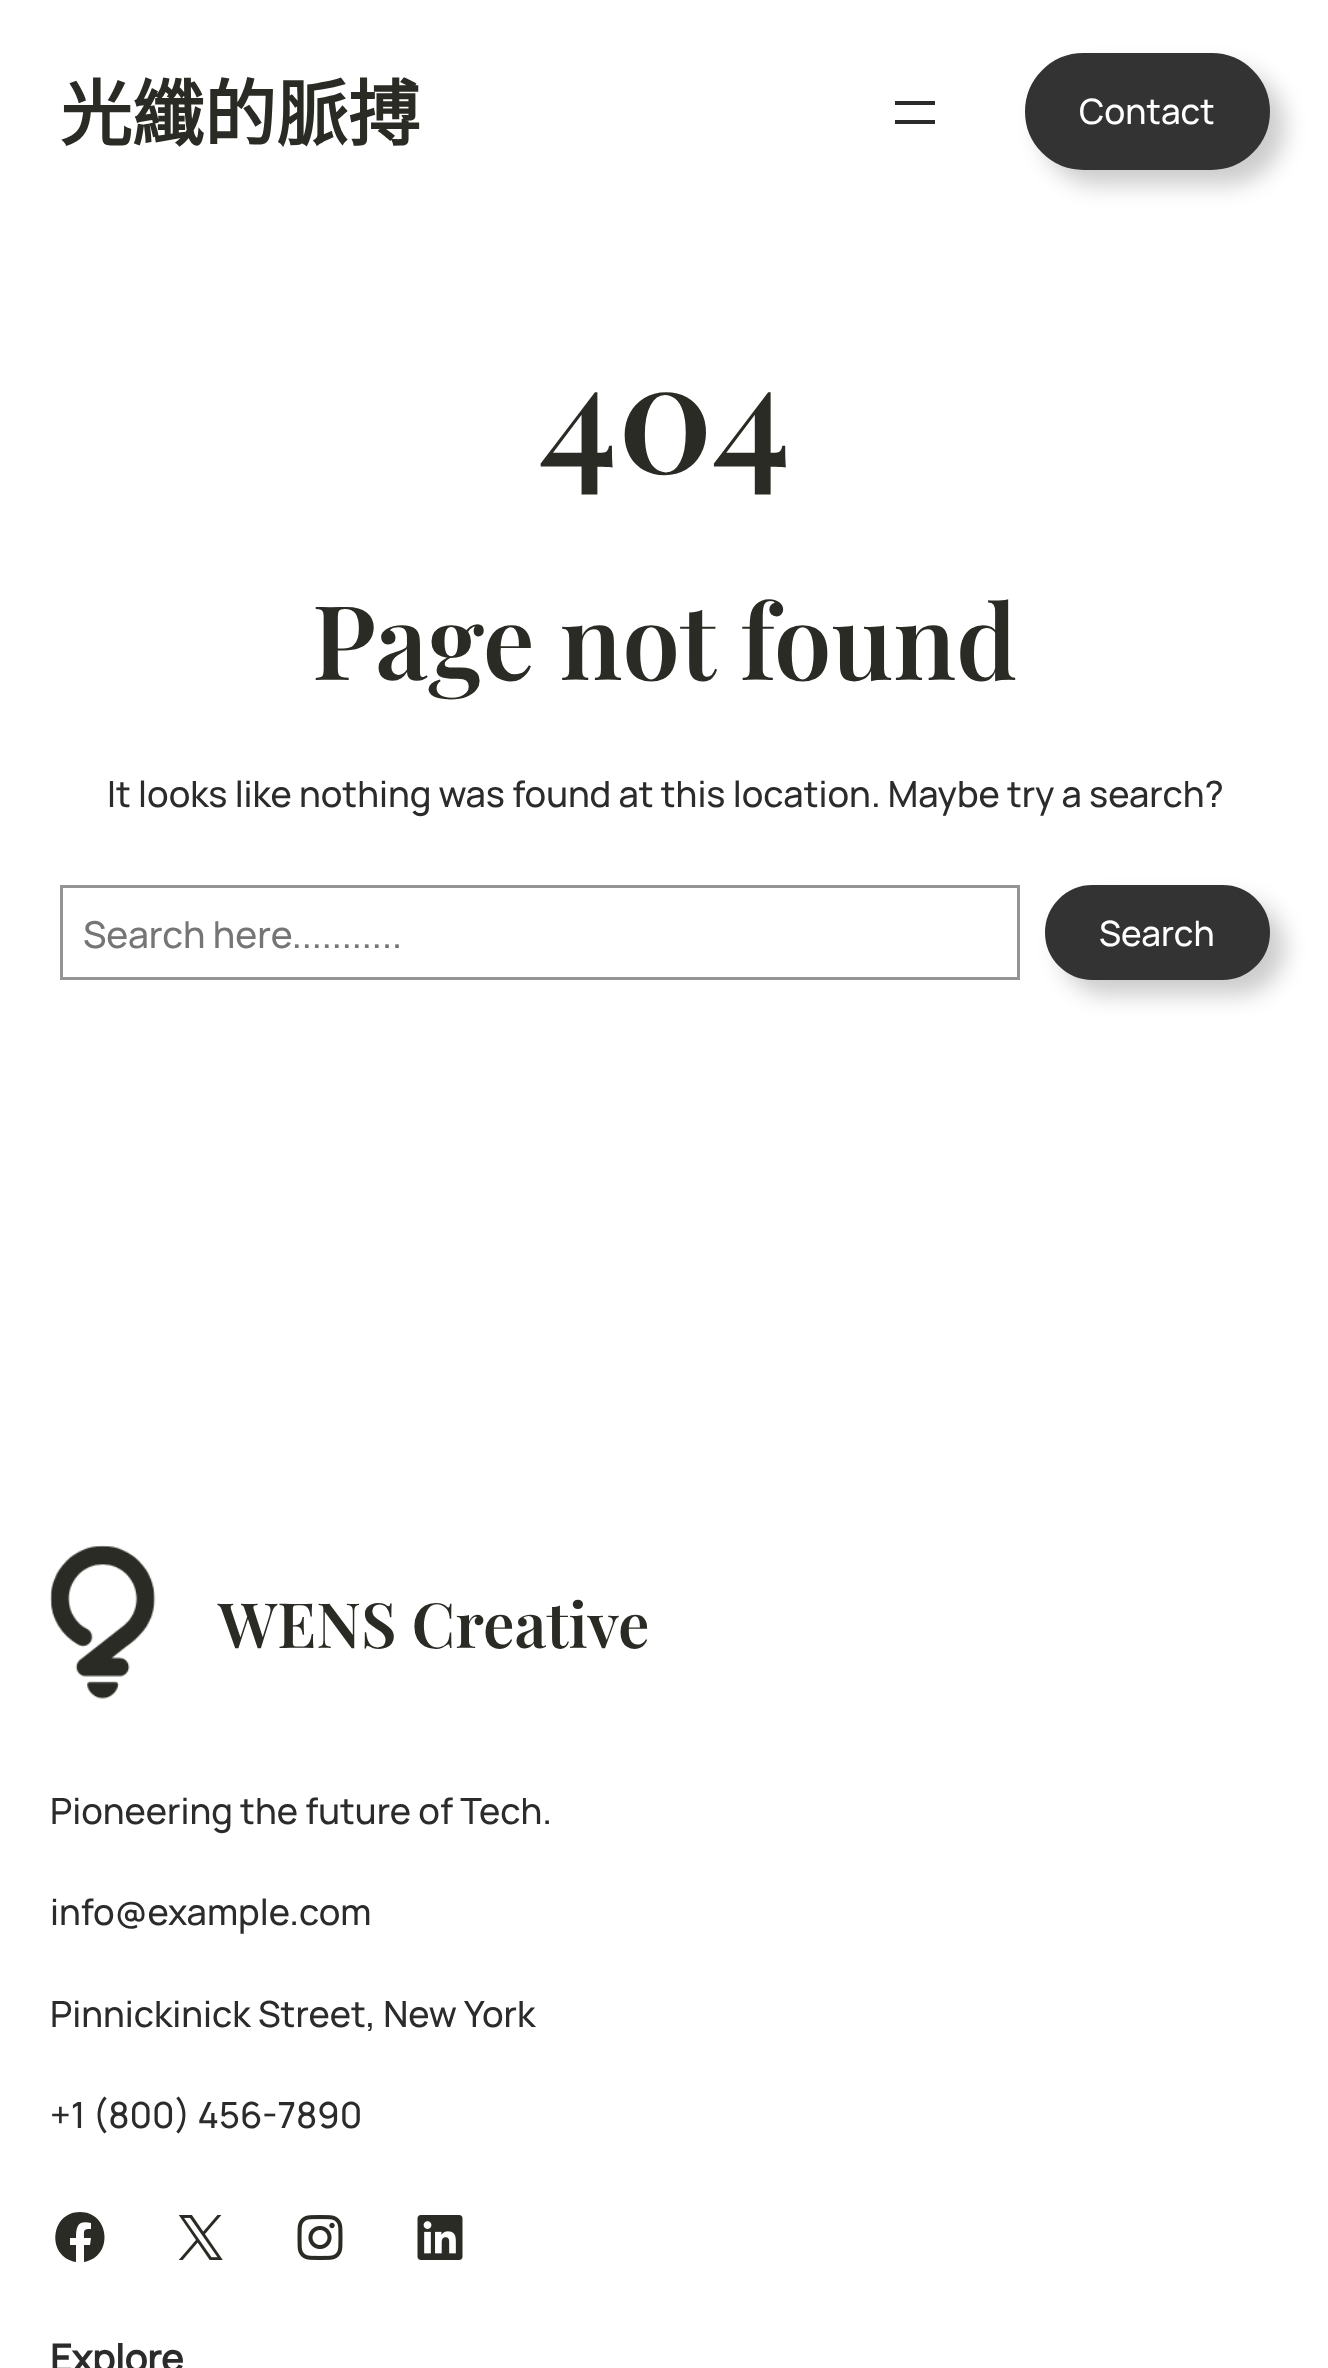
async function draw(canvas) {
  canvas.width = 1328
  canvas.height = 2368
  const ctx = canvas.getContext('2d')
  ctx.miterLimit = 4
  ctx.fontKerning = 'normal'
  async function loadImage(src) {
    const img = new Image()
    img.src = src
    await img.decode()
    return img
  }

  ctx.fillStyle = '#fff'
  ctx.fillRect(0, 0, 1328, 2368)
  ctx.font = 'bold 72px Noto Sans CJK TC'
  ctx.fillStyle = '#2b2b25'
  ctx.fillText('光纖的脈搏', 60, 140)
  ctx.fillStyle = '#2b2b2b'
  ctx.fillRect(895, 101, 40, 4)
  ctx.fillRect(895, 120, 40, 4)
  ctx.fillStyle = '#00000033'
  ctx.filter = 'blur(11px)'
  ctx.beginPath()
  ctx.roundRect(1040, 68, 245, 117, 58.5)
  ctx.fill()
  ctx.filter = 'none'
  ctx.fillStyle = '#333'
  ctx.beginPath()
  ctx.roundRect(1027.5, 55.5, 240, 112, 56)
  ctx.fill()
  ctx.strokeStyle = '#333'
  ctx.lineWidth = 5
  ctx.stroke()
  ctx.font = '500 35px Manrope'
  ctx.fillStyle = '#fff'
  ctx.fillText('Contact', 1079, 124)
  ctx.font = '600 152px Playfair Display'
  ctx.fillStyle = '#2b2b25'
  ctx.fillText('404', 539, 473)
  ctx.font = '600 103.25px Playfair Display'
  ctx.fillText('Page not found', 312, 680)
  ctx.font = '500 36.05px Manrope'
  ctx.fillStyle = '#2b2b2b'
  ctx.fillText('It looks like nothing was found at this location. Maybe try a search?', 107, 807)
  ctx.strokeStyle = '#949494'
  ctx.lineWidth = 3
  ctx.strokeRect(61.5, 886.5, 957, 92)
  ctx.font = '500 37.1px Manrope'
  ctx.fillStyle = '#757575'
  ctx.fillText('Search here...........', 83, 948)
  ctx.fillStyle = '#00000033'
  ctx.filter = 'blur(11px)'
  ctx.beginPath()
  ctx.roundRect(1060, 900, 225, 95, 47.5)
  ctx.fill()
  ctx.filter = 'none'
  ctx.fillStyle = '#333'
  ctx.beginPath()
  ctx.roundRect(1047.5, 887.5, 220, 90, 45)
  ctx.fill()
  ctx.strokeStyle = '#333'
  ctx.lineWidth = 5
  ctx.stroke()
  ctx.font = '500 35px Manrope'
  ctx.fillStyle = '#fff'
  ctx.fillText('Search', 1099, 946)
  ctx.drawImage(await loadImage('image0.png'), 50, 1545, 106, 154)
  ctx.font = '600 62.5px Playfair Display'
  ctx.fillStyle = '#2b2b25'
  ctx.fillText('WENS Creative', 218, 1648)
  ctx.font = '500 36.05px Manrope'
  ctx.fillStyle = '#2b2b2b'
  ctx.fillText('Pioneering the future of Tech.', 50, 1824)
  ctx.fillText('info@example.com', 50, 1925)
  ctx.fillText('Pinnickinick Street, New York', 50, 2027)
  ctx.fillText('+1 (800) 456-7890', 50, 2128)
  ctx.fillStyle = '#2b2b25'
  ctx.beginPath()
  ctx.moveTo(80, 2212)
  ctx.bezierCurveTo(50, 2212, 46, 2257, 76, 2262)
  ctx.lineTo(76, 2245)
  ctx.lineTo(70, 2245)
  ctx.lineTo(70, 2238)
  ctx.lineTo(76, 2238)
  ctx.bezierCurveTo(76, 2226, 78, 2220, 91, 2223)
  ctx.lineTo(91, 2229)
  ctx.bezierCurveTo(83, 2229, 84, 2230, 84, 2238)
  ctx.lineTo(91, 2238)
  ctx.lineTo(90, 2245)
  ctx.lineTo(84, 2245)
  ctx.lineTo(84, 2262)
  ctx.bezierCurveTo(114, 2257, 110, 2212, 80, 2212)
  ctx.closePath()
  ctx.fill()
  ctx.drawImage(await loadImage('image1.png'), 178, 2215, 45, 45)
  ctx.drawImage(await loadImage('image2.png'), 297, 2215, 46, 45)
  ctx.drawImage(await loadImage('image3.png'), 417, 2215, 46, 45)
  ctx.font = 'bold 38px Manrope'
  ctx.fillStyle = '#2b2b2b'
  ctx.fillText('Explore', 50, 2372)
}

draw(document.querySelector('canvas'))
